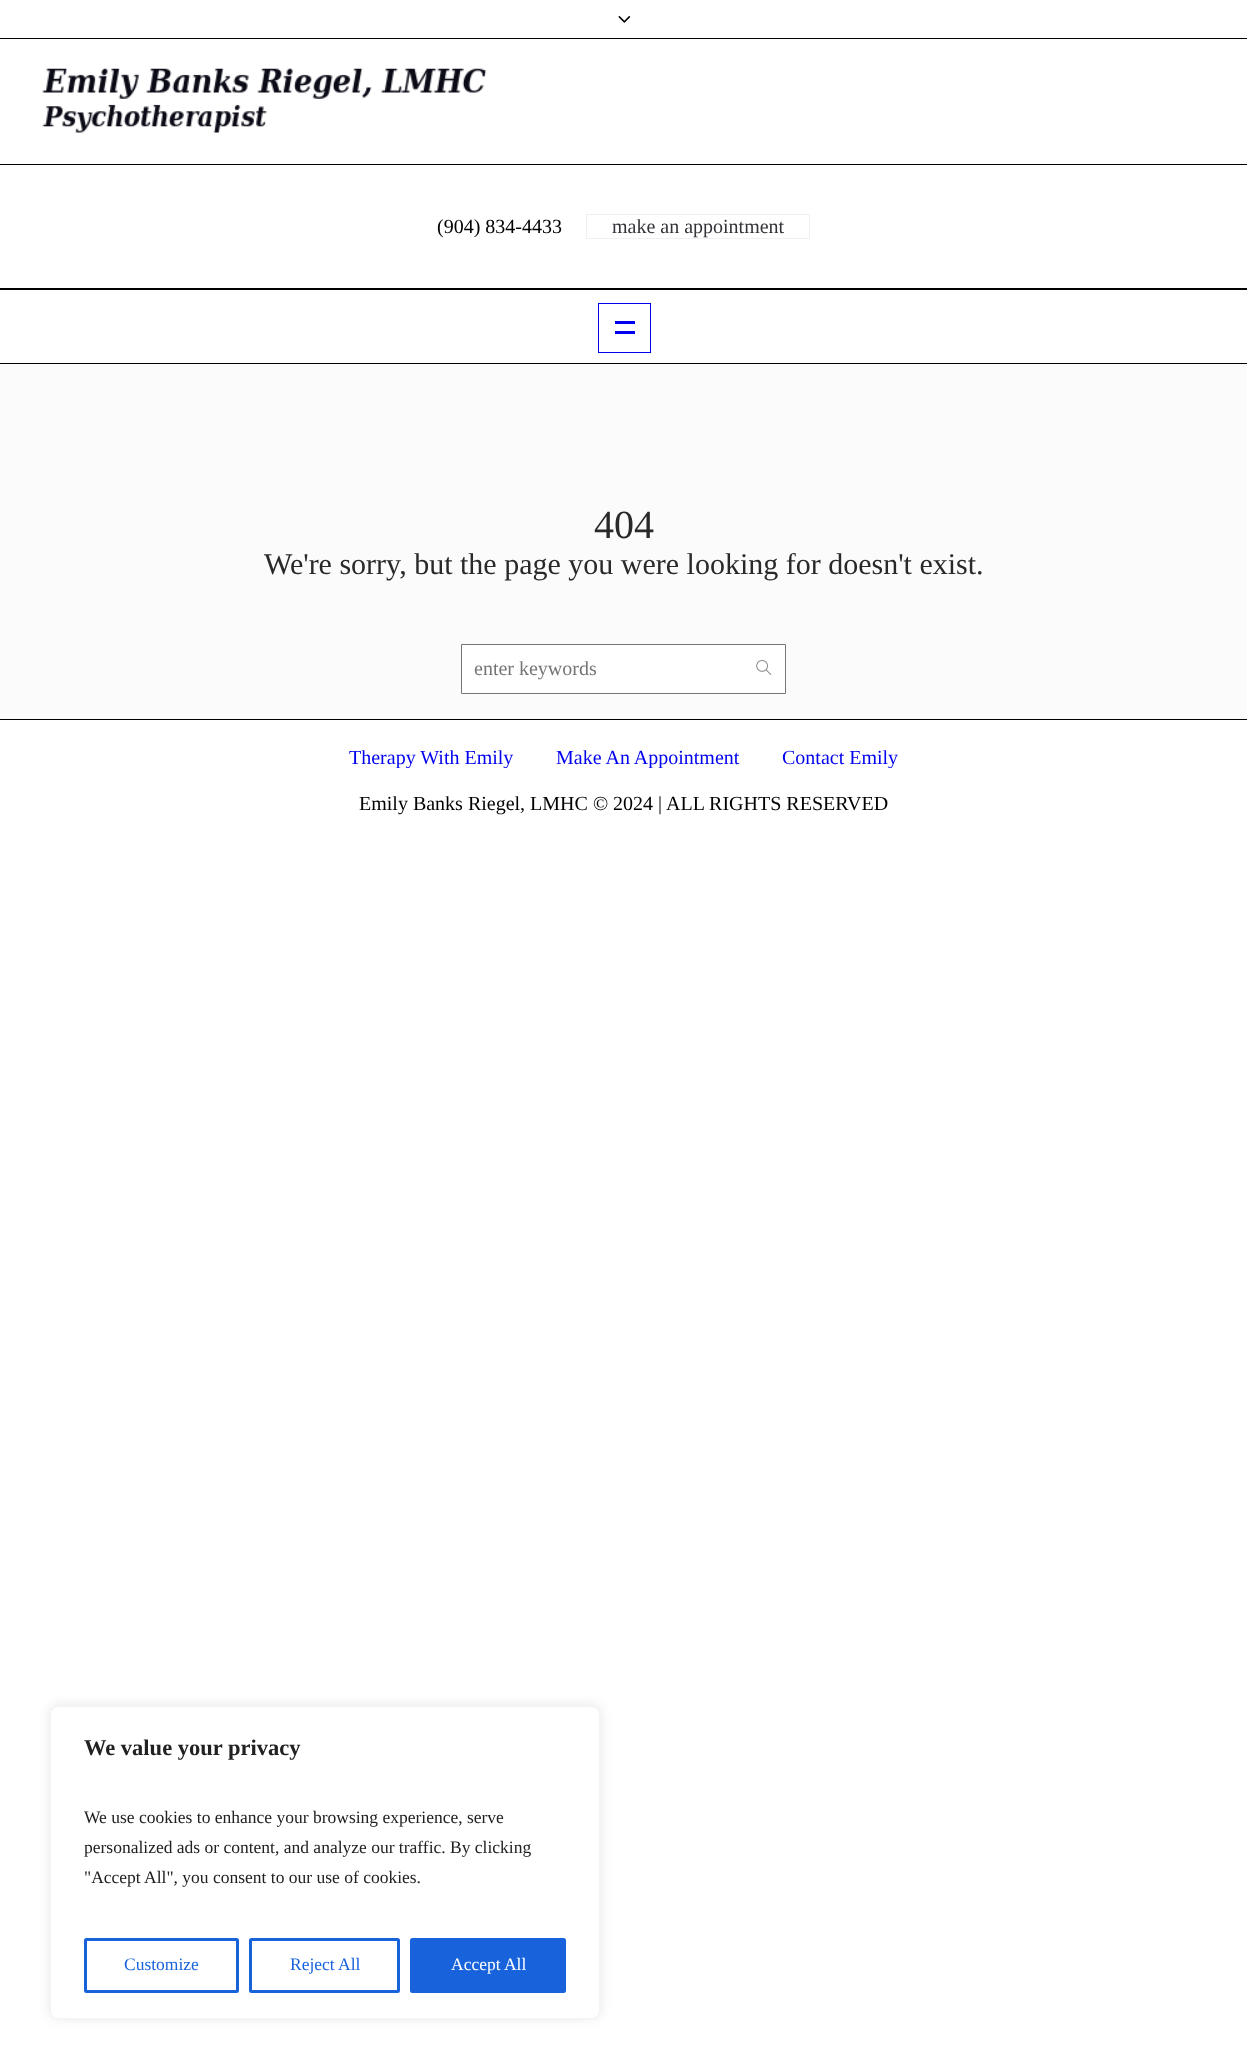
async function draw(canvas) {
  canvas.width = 1247
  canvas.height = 2068
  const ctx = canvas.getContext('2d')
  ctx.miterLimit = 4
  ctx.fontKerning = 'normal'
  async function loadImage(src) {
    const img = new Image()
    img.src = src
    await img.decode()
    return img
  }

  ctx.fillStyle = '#fff'
  ctx.fillRect(0, 0, 1247, 2068)
  ctx.fillStyle = '#000'
  ctx.fillRect(0, 38, 1247, 1)
  ctx.drawImage(await loadImage('image0.png'), 618, 16, 13, 7)
  ctx.fillRect(0, 288, 1247, 2)
  ctx.drawImage(await loadImage('image1.png'), 42, 68, 445, 65)
  ctx.fillRect(0, 164, 1247, 1)
  ctx.font = '20px Liberation Serif'
  ctx.fillText('(904) 834-4433', 437, 233)
  ctx.strokeStyle = '#f0f0f0'
  ctx.strokeRect(586.5, 214.5, 223, 24)
  ctx.fillStyle = '#35333a'
  ctx.fillText('make an appointment', 612, 233)
  ctx.fillStyle = '#000'
  ctx.fillRect(0, 363, 1247, 1)
  ctx.strokeStyle = '#00e'
  ctx.strokeRect(598.5, 303.5, 52, 49)
  ctx.fillStyle = '#00e'
  ctx.fillRect(615, 321, 20, 3)
  ctx.fillRect(615, 331, 20, 3)
  ctx.fillStyle = '#fbfbfb'
  ctx.fillRect(0, 364, 1247, 355)
  ctx.font = '40px Liberation Serif'
  ctx.fillStyle = '#292929'
  ctx.fillText('404', 594, 538)
  ctx.font = '30px Liberation Serif'
  ctx.fillText('We\'re sorry, but the page you were looking for doesn\'t exist.', 264, 574)
  ctx.fillStyle = '#fff'
  ctx.beginPath()
  ctx.rect(461.5, 644.5, 324, 49)
  ctx.fill()
  ctx.strokeStyle = '#767676'
  ctx.stroke()
  ctx.font = '20px Liberation Serif'
  ctx.fillStyle = '#757575'
  ctx.fillText('enter keywords', 474, 675)
  ctx.drawImage(await loadImage('image2.png'), 756, 660, 16, 15)
  ctx.fillStyle = '#000'
  ctx.fillRect(0, 719, 1247, 1)
  ctx.save()
  ctx.beginPath()
  ctx.rect(25, 720, 1198, 48)
  ctx.clip()
  ctx.fillStyle = '#00e'
  ctx.fillText('Therapy With Emily', 349, 764)
  ctx.fillText('Make An Appointment', 556, 764)
  ctx.fillText('Contact Emily', 782, 764)
  ctx.restore()
  ctx.fillText('Emily Banks Riegel, LMHC © 2024 | ALL RIGHTS RESERVED', 359, 810)
  ctx.fillStyle = '#acabab4d'
  ctx.filter = 'blur(6px)'
  ctx.beginPath()
  ctx.roundRect(50, 1705, 550, 313, 8)
  ctx.fill()
  ctx.filter = 'none'
  ctx.fillStyle = '#fff'
  ctx.beginPath()
  ctx.roundRect(50.5, 1706.5, 549, 312, 7.5)
  ctx.fill()
  ctx.strokeStyle = '#f4f4f4'
  ctx.stroke()
  ctx.font = 'bold 22.5px Liberation Serif'
  ctx.fillStyle = '#212121'
  ctx.fillText('We value your privacy', 84, 1755)
  ctx.font = '17.5px Liberation Serif'
  ctx.fillText('We use cookies to enhance your browsing experience, serve', 84, 1823)
  ctx.fillText('personalized ads or content, and analyze our traffic. By clicking', 84, 1853)
  ctx.fillText('"Accept All", you consent to our use of cookies.', 84, 1883)
  ctx.beginPath()
  ctx.roundRect(85.5, 1939.5, 152, 52, 1)
  ctx.strokeStyle = '#1863dc'
  ctx.lineWidth = 3
  ctx.stroke()
  ctx.fillStyle = '#1863dc'
  ctx.fillText('Customize', 124, 1970)
  ctx.beginPath()
  ctx.roundRect(250.5, 1939.5, 148, 52, 1)
  ctx.stroke()
  ctx.fillText('Reject All', 290, 1970)
  ctx.beginPath()
  ctx.roundRect(411.5, 1939.5, 153, 52, 1)
  ctx.fill()
  ctx.stroke()
  ctx.fillStyle = '#fff'
  ctx.fillText('Accept All', 451, 1970)
}

draw(document.querySelector('canvas'))
